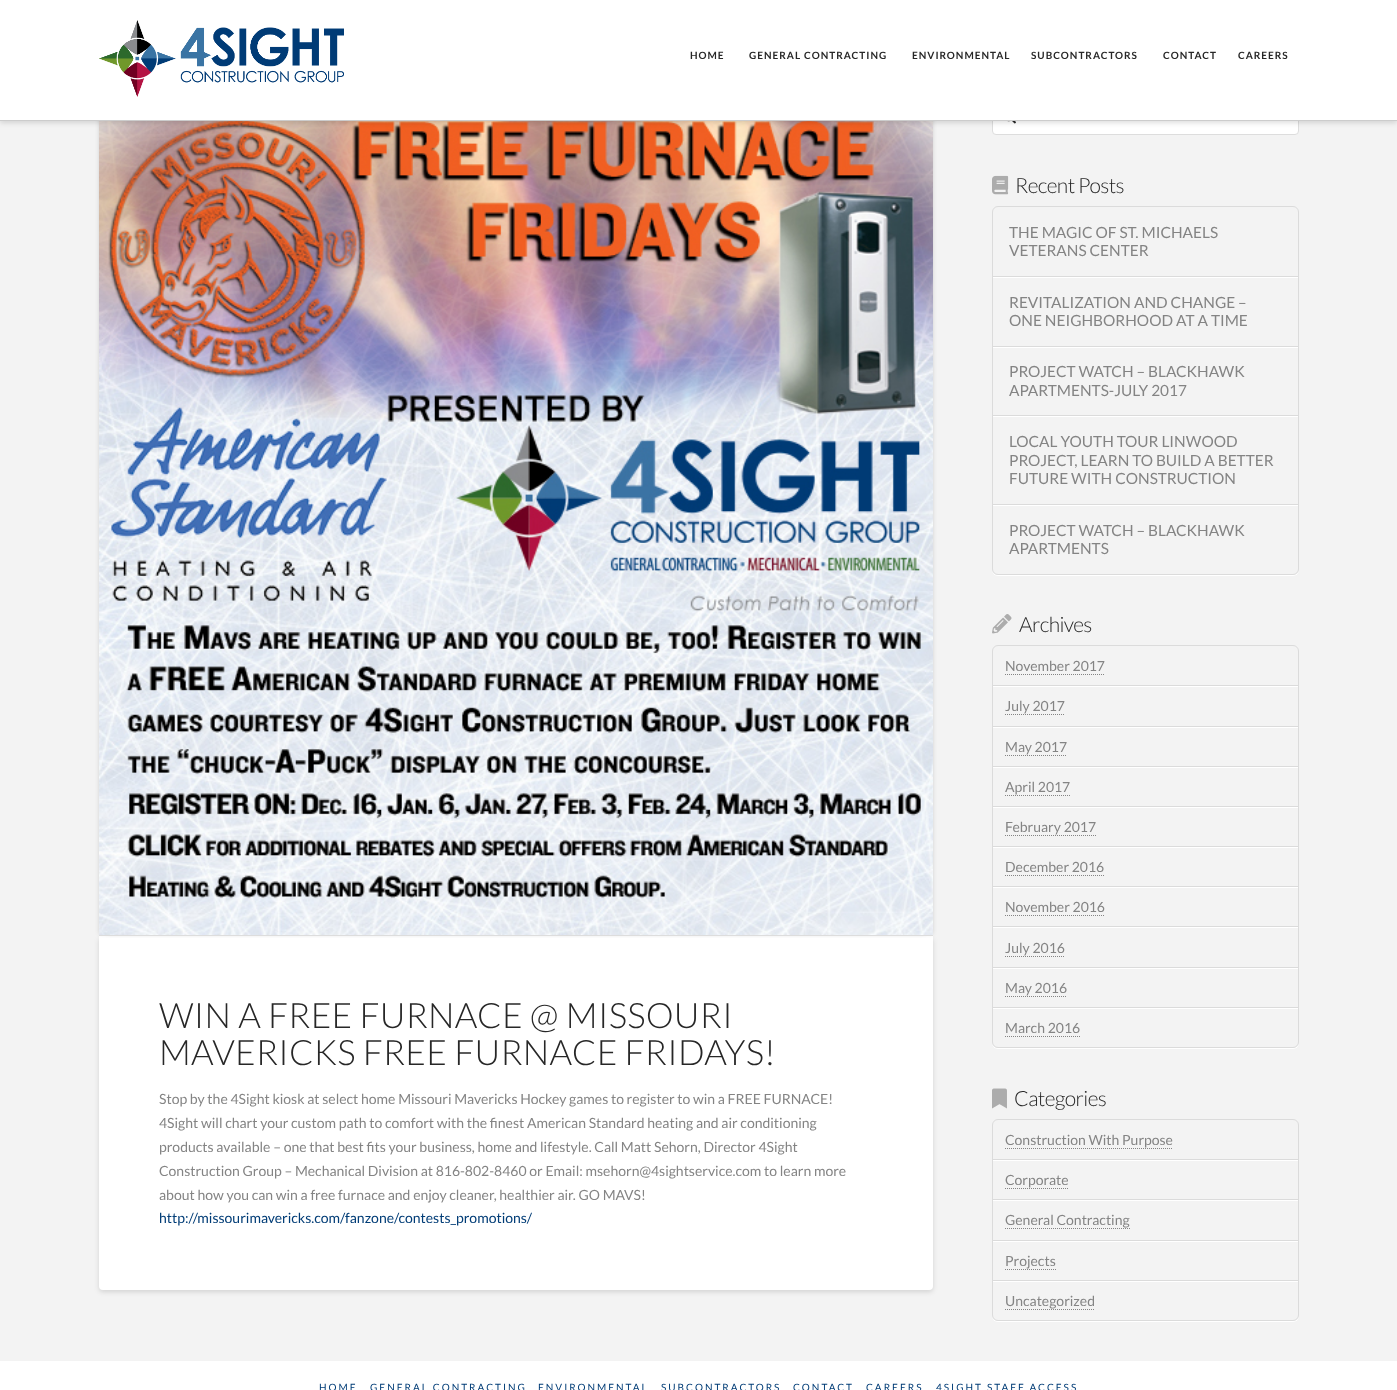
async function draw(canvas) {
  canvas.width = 1397
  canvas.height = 1390
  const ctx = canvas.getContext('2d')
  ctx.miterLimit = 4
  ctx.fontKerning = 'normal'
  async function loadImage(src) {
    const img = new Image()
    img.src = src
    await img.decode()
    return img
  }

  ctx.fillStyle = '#f3f3f3'
  ctx.fillRect(0, 0, 1397, 1390)
  ctx.fillStyle = '#00000021'
  ctx.filter = 'blur(2.5px)'
  ctx.beginPath()
  ctx.roundRect(99, 938, 834, 354, 4)
  ctx.fill()
  ctx.filter = 'none'
  ctx.fillStyle = '#fff'
  ctx.beginPath()
  ctx.roundRect(99, 936, 834, 354, [0, 0, 4, 4])
  ctx.fill()
  ctx.fillStyle = '#00000021'
  ctx.filter = 'blur(2px)'
  ctx.beginPath()
  ctx.rect(99, 107, 826, 827)
  ctx.fill()
  ctx.filter = 'none'
  ctx.filter = 'blur(2px)'
  ctx.beginPath()
  ctx.rect(107, 107, 826, 827)
  ctx.fill()
  ctx.filter = 'none'
  ctx.drawImage(await loadImage('image1.png'), 99, 121, 834, 814)
  ctx.fillStyle = '#fff'
  ctx.beginPath()
  ctx.roundRect(992.5, 101.5, 306, 33, 3.5)
  ctx.fill()
  ctx.strokeStyle = '#ddd'
  ctx.stroke()
  ctx.drawImage(await loadImage('image2.png'), 1007, 121, 9, 3)
  ctx.fillStyle = '#00000021'
  ctx.filter = 'blur(2.5px)'
  ctx.beginPath()
  ctx.rect(0, 2, 1397, 121)
  ctx.fill()
  ctx.filter = 'none'
  ctx.fillStyle = '#fff'
  ctx.fillRect(0, 0, 1397, 120)
  ctx.fillStyle = '#ccc'
  ctx.fillRect(0, 120, 1397, 1)
  ctx.drawImage(await loadImage('image0.png'), 99, 20, 245, 77)
  ctx.letterSpacing = '1px'
  ctx.font = 'bold 10px Lato'
  ctx.fillStyle = '#272727'
  ctx.fillText('HOME', 690, 59)
  ctx.fillText('GENERAL CONTRACTING', 749, 59)
  ctx.fillText('ENVIRONMENTAL', 912, 59)
  ctx.fillText('SUBCONTRACTORS', 1031, 59)
  ctx.fillText('CONTACT', 1163, 59)
  ctx.fillText('CAREERS', 1238, 59)
  ctx.fillStyle = '#ddd'
  ctx.fillRect(99, 935, 834, 1)
  ctx.letterSpacing = '0.25px'
  ctx.font = '300 35px Lato'
  ctx.fillStyle = '#272727'
  ctx.fillText('WIN A FREE FURNACE @ MISSOURI', 159, 1028)
  ctx.fillText('MAVERICKS FREE FURNACE FRIDAYS!', 159, 1065)
  ctx.letterSpacing = '0px'
  ctx.font = '14px Lato'
  ctx.fillStyle = '#848484'
  ctx.fillText('Stop by the 4Sight kiosk at select home Missouri Mavericks Hockey games to register to win a FREE FURNACE!', 159, 1104)
  ctx.fillText('4Sight will chart your custom path to comfort with the finest American Standard heating and air conditioning', 159, 1128)
  ctx.fillText('products available – one that best fits your business, home and lifestyle. Call Matt Sehorn, Director 4Sight', 159, 1152)
  ctx.fillText('Construction Group – Mechanical Division at 816-802-8460 or Email: msehorn@4sightservice.com to learn more', 159, 1176)
  ctx.fillText('about how you can win a free furnace and enjoy cleaner, healthier air. GO MAVS!', 159, 1200)
  ctx.fillStyle = '#003c76'
  ctx.fillText('http://missourimavericks.com/fanzone/contests_promotions/', 159, 1223)
  ctx.drawImage(await loadImage('image3.png'), 992, 175, 17, 20)
  ctx.letterSpacing = '-0.6px'
  ctx.font = '300 21px Lato'
  ctx.fillStyle = '#272727'
  ctx.fillText('Recent Posts', 1015, 193)
  ctx.save()
  ctx.beginPath()
  ctx.moveTo(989, 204)
  ctx.lineTo(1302, 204)
  ctx.lineTo(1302, 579)
  ctx.lineTo(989, 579)
  ctx.closePath()
  ctx.moveTo(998, 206)
  ctx.lineTo(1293, 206)
  ctx.bezierCurveTo(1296.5, 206, 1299, 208.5, 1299, 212)
  ctx.lineTo(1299, 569)
  ctx.bezierCurveTo(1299, 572.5, 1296.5, 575, 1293, 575)
  ctx.lineTo(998, 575)
  ctx.bezierCurveTo(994.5, 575, 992, 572.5, 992, 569)
  ctx.lineTo(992, 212)
  ctx.bezierCurveTo(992, 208.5, 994.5, 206, 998, 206)
  ctx.closePath()
  ctx.clip('evenodd')
  ctx.fillStyle = '#fffffff2'
  ctx.filter = 'blur(0.5px)'
  ctx.beginPath()
  ctx.roundRect(992, 207, 307, 369, 6)
  ctx.fill()
  ctx.filter = 'none'
  ctx.restore()
  ctx.beginPath()
  ctx.roundRect(992.5, 206.5, 306, 368, 5.5)
  ctx.strokeStyle = '#dbdbdb'
  ctx.stroke()
  ctx.save()
  ctx.beginPath()
  ctx.rect(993, 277, 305, 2)
  ctx.clip()
  ctx.fillStyle = '#fffffff2'
  ctx.filter = 'blur(0.5px)'
  ctx.beginPath()
  ctx.rect(993, 208, 305, 70)
  ctx.fill()
  ctx.filter = 'none'
  ctx.restore()
  ctx.fillStyle = '#dbdbdb'
  ctx.fillRect(993, 276, 305, 1)
  ctx.letterSpacing = '0px'
  ctx.font = '15.4px Lato'
  ctx.fillStyle = '#848484'
  ctx.fillText('THE MAGIC OF ST. MICHAELS', 1009, 238)
  ctx.fillText('VETERANS CENTER', 1009, 256)
  ctx.save()
  ctx.beginPath()
  ctx.rect(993, 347, 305, 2)
  ctx.clip()
  ctx.fillStyle = '#fffffff2'
  ctx.filter = 'blur(0.5px)'
  ctx.beginPath()
  ctx.rect(993, 278, 305, 70)
  ctx.fill()
  ctx.filter = 'none'
  ctx.restore()
  ctx.fillStyle = '#dbdbdb'
  ctx.fillRect(993, 346, 305, 1)
  ctx.fillStyle = '#848484'
  ctx.fillText('REVITALIZATION AND CHANGE –', 1009, 308)
  ctx.fillText('ONE NEIGHBORHOOD AT A TIME', 1009, 326)
  ctx.save()
  ctx.beginPath()
  ctx.rect(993, 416, 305, 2)
  ctx.clip()
  ctx.fillStyle = '#fffffff2'
  ctx.filter = 'blur(0.5px)'
  ctx.beginPath()
  ctx.rect(993, 348, 305, 69)
  ctx.fill()
  ctx.filter = 'none'
  ctx.restore()
  ctx.fillStyle = '#dbdbdb'
  ctx.fillRect(993, 415, 305, 1)
  ctx.fillStyle = '#848484'
  ctx.fillText('PROJECT WATCH – BLACKHAWK', 1009, 377)
  ctx.fillText('APARTMENTS-JULY 2017', 1009, 396)
  ctx.save()
  ctx.beginPath()
  ctx.rect(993, 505, 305, 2)
  ctx.clip()
  ctx.fillStyle = '#fffffff2'
  ctx.filter = 'blur(0.5px)'
  ctx.beginPath()
  ctx.rect(993, 417, 305, 89)
  ctx.fill()
  ctx.filter = 'none'
  ctx.restore()
  ctx.fillStyle = '#dbdbdb'
  ctx.fillRect(993, 504, 305, 1)
  ctx.fillStyle = '#848484'
  ctx.fillText('LOCAL YOUTH TOUR LINWOOD', 1009, 447)
  ctx.fillText('PROJECT, LEARN TO BUILD A BETTER', 1009, 466)
  ctx.fillText('FUTURE WITH CONSTRUCTION', 1009, 484)
  ctx.fillText('PROJECT WATCH – BLACKHAWK', 1009, 536)
  ctx.fillText('APARTMENTS', 1009, 554)
  ctx.drawImage(await loadImage('image4.png'), 992, 614, 20, 20)
  ctx.letterSpacing = '-0.6px'
  ctx.font = '300 21px Lato'
  ctx.fillStyle = '#272727'
  ctx.fillText('Archives', 1019, 632)
  ctx.save()
  ctx.beginPath()
  ctx.moveTo(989, 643)
  ctx.lineTo(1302, 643)
  ctx.lineTo(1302, 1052)
  ctx.lineTo(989, 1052)
  ctx.closePath()
  ctx.moveTo(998, 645)
  ctx.lineTo(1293, 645)
  ctx.bezierCurveTo(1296.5, 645, 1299, 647.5, 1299, 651)
  ctx.lineTo(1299, 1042)
  ctx.bezierCurveTo(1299, 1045.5, 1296.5, 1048, 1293, 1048)
  ctx.lineTo(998, 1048)
  ctx.bezierCurveTo(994.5, 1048, 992, 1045.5, 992, 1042)
  ctx.lineTo(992, 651)
  ctx.bezierCurveTo(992, 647.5, 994.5, 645, 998, 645)
  ctx.closePath()
  ctx.clip('evenodd')
  ctx.fillStyle = '#fffffff2'
  ctx.filter = 'blur(0.5px)'
  ctx.beginPath()
  ctx.roundRect(992, 646, 307, 403, 6)
  ctx.fill()
  ctx.filter = 'none'
  ctx.restore()
  ctx.beginPath()
  ctx.roundRect(992.5, 645.5, 306, 402, 5.5)
  ctx.stroke()
  ctx.save()
  ctx.beginPath()
  ctx.rect(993, 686, 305, 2)
  ctx.clip()
  ctx.fillStyle = '#fffffff2'
  ctx.filter = 'blur(0.5px)'
  ctx.beginPath()
  ctx.rect(993, 647, 305, 40)
  ctx.fill()
  ctx.filter = 'none'
  ctx.restore()
  ctx.fillStyle = '#dbdbdb'
  ctx.fillRect(993, 685, 305, 1)
  ctx.letterSpacing = '0px'
  ctx.font = '14px Lato'
  ctx.fillStyle = '#848484'
  ctx.fillText('November 2017', 1005, 671)
  ctx.beginPath()
  ctx.moveTo(1005, 674.5)
  ctx.lineTo(1105, 674.5)
  ctx.strokeStyle = '#848484'
  ctx.setLineDash([1, 1])
  ctx.stroke()
  ctx.save()
  ctx.beginPath()
  ctx.rect(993, 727, 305, 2)
  ctx.clip()
  ctx.fillStyle = '#fffffff2'
  ctx.filter = 'blur(0.5px)'
  ctx.beginPath()
  ctx.rect(993, 687, 305, 41)
  ctx.fill()
  ctx.filter = 'none'
  ctx.restore()
  ctx.fillStyle = '#dbdbdb'
  ctx.fillRect(993, 726, 305, 1)
  ctx.fillStyle = '#848484'
  ctx.fillText('July 2017', 1005, 711)
  ctx.beginPath()
  ctx.moveTo(1005, 714.5)
  ctx.lineTo(1065, 714.5)
  ctx.stroke()
  ctx.save()
  ctx.beginPath()
  ctx.rect(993, 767, 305, 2)
  ctx.clip()
  ctx.fillStyle = '#fffffff2'
  ctx.filter = 'blur(0.5px)'
  ctx.beginPath()
  ctx.rect(993, 728, 305, 40)
  ctx.fill()
  ctx.filter = 'none'
  ctx.restore()
  ctx.fillStyle = '#dbdbdb'
  ctx.fillRect(993, 766, 305, 1)
  ctx.fillStyle = '#848484'
  ctx.fillText('May 2017', 1005, 752)
  ctx.beginPath()
  ctx.moveTo(1005, 755.5)
  ctx.lineTo(1067, 755.5)
  ctx.stroke()
  ctx.save()
  ctx.beginPath()
  ctx.rect(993, 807, 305, 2)
  ctx.clip()
  ctx.fillStyle = '#fffffff2'
  ctx.filter = 'blur(0.5px)'
  ctx.beginPath()
  ctx.rect(993, 768, 305, 40)
  ctx.fill()
  ctx.filter = 'none'
  ctx.restore()
  ctx.fillStyle = '#dbdbdb'
  ctx.fillRect(993, 806, 305, 1)
  ctx.fillStyle = '#848484'
  ctx.fillText('April 2017', 1005, 792)
  ctx.beginPath()
  ctx.moveTo(1005, 795.5)
  ctx.lineTo(1070, 795.5)
  ctx.stroke()
  ctx.save()
  ctx.beginPath()
  ctx.rect(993, 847, 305, 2)
  ctx.clip()
  ctx.fillStyle = '#fffffff2'
  ctx.filter = 'blur(0.5px)'
  ctx.beginPath()
  ctx.rect(993, 808, 305, 40)
  ctx.fill()
  ctx.filter = 'none'
  ctx.restore()
  ctx.fillStyle = '#dbdbdb'
  ctx.fillRect(993, 846, 305, 1)
  ctx.fillStyle = '#848484'
  ctx.fillText('February 2017', 1005, 832)
  ctx.beginPath()
  ctx.moveTo(1005, 835.5)
  ctx.lineTo(1096, 835.5)
  ctx.stroke()
  ctx.save()
  ctx.beginPath()
  ctx.rect(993, 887, 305, 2)
  ctx.clip()
  ctx.fillStyle = '#fffffff2'
  ctx.filter = 'blur(0.5px)'
  ctx.beginPath()
  ctx.rect(993, 848, 305, 40)
  ctx.fill()
  ctx.filter = 'none'
  ctx.restore()
  ctx.fillStyle = '#dbdbdb'
  ctx.fillRect(993, 886, 305, 1)
  ctx.fillStyle = '#848484'
  ctx.fillText('December 2016', 1005, 872)
  ctx.beginPath()
  ctx.moveTo(1005, 875.5)
  ctx.lineTo(1104, 875.5)
  ctx.stroke()
  ctx.save()
  ctx.beginPath()
  ctx.rect(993, 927, 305, 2)
  ctx.clip()
  ctx.fillStyle = '#fffffff2'
  ctx.filter = 'blur(0.5px)'
  ctx.beginPath()
  ctx.rect(993, 888, 305, 40)
  ctx.fill()
  ctx.filter = 'none'
  ctx.restore()
  ctx.fillStyle = '#dbdbdb'
  ctx.fillRect(993, 926, 305, 1)
  ctx.fillStyle = '#848484'
  ctx.fillText('November 2016', 1005, 912)
  ctx.beginPath()
  ctx.moveTo(1005, 915.5)
  ctx.lineTo(1105, 915.5)
  ctx.stroke()
  ctx.save()
  ctx.beginPath()
  ctx.rect(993, 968, 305, 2)
  ctx.clip()
  ctx.fillStyle = '#fffffff2'
  ctx.filter = 'blur(0.5px)'
  ctx.beginPath()
  ctx.rect(993, 928, 305, 41)
  ctx.fill()
  ctx.filter = 'none'
  ctx.restore()
  ctx.fillStyle = '#dbdbdb'
  ctx.fillRect(993, 967, 305, 1)
  ctx.fillStyle = '#848484'
  ctx.fillText('July 2016', 1005, 953)
  ctx.beginPath()
  ctx.moveTo(1005, 956.5)
  ctx.lineTo(1065, 956.5)
  ctx.stroke()
  ctx.save()
  ctx.beginPath()
  ctx.rect(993, 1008, 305, 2)
  ctx.clip()
  ctx.fillStyle = '#fffffff2'
  ctx.filter = 'blur(0.5px)'
  ctx.beginPath()
  ctx.rect(993, 969, 305, 40)
  ctx.fill()
  ctx.filter = 'none'
  ctx.restore()
  ctx.fillStyle = '#dbdbdb'
  ctx.fillRect(993, 1007, 305, 1)
  ctx.fillStyle = '#848484'
  ctx.fillText('May 2016', 1005, 993)
  ctx.beginPath()
  ctx.moveTo(1005, 996.5)
  ctx.lineTo(1067, 996.5)
  ctx.stroke()
  ctx.fillText('March 2016', 1005, 1033)
  ctx.beginPath()
  ctx.moveTo(1005, 1036.5)
  ctx.lineTo(1080, 1036.5)
  ctx.stroke()
  ctx.drawImage(await loadImage('image5.png'), 992, 1088, 15, 21)
  ctx.letterSpacing = '-0.6px'
  ctx.font = '300 21px Lato'
  ctx.fillStyle = '#272727'
  ctx.fillText('Categories', 1014, 1106)
  ctx.save()
  ctx.beginPath()
  ctx.moveTo(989, 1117)
  ctx.lineTo(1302, 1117)
  ctx.lineTo(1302, 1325)
  ctx.lineTo(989, 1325)
  ctx.closePath()
  ctx.moveTo(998, 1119)
  ctx.lineTo(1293, 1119)
  ctx.bezierCurveTo(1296.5, 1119, 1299, 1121.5, 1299, 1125)
  ctx.lineTo(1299, 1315)
  ctx.bezierCurveTo(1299, 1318.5, 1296.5, 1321, 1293, 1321)
  ctx.lineTo(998, 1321)
  ctx.bezierCurveTo(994.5, 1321, 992, 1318.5, 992, 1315)
  ctx.lineTo(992, 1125)
  ctx.bezierCurveTo(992, 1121.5, 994.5, 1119, 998, 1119)
  ctx.closePath()
  ctx.clip('evenodd')
  ctx.fillStyle = '#fffffff2'
  ctx.filter = 'blur(0.5px)'
  ctx.beginPath()
  ctx.roundRect(992, 1120, 307, 202, 6)
  ctx.fill()
  ctx.filter = 'none'
  ctx.restore()
  ctx.beginPath()
  ctx.roundRect(992.5, 1119.5, 306, 201, 5.5)
  ctx.strokeStyle = '#dbdbdb'
  ctx.setLineDash([])
  ctx.stroke()
  ctx.save()
  ctx.beginPath()
  ctx.rect(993, 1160, 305, 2)
  ctx.clip()
  ctx.fillStyle = '#fffffff2'
  ctx.filter = 'blur(0.5px)'
  ctx.beginPath()
  ctx.rect(993, 1121, 305, 40)
  ctx.fill()
  ctx.filter = 'none'
  ctx.restore()
  ctx.fillStyle = '#dbdbdb'
  ctx.fillRect(993, 1159, 305, 1)
  ctx.letterSpacing = '0px'
  ctx.font = '14px Lato'
  ctx.fillStyle = '#848484'
  ctx.fillText('Construction With Purpose', 1005, 1145)
  ctx.beginPath()
  ctx.moveTo(1005, 1148.5)
  ctx.lineTo(1173, 1148.5)
  ctx.strokeStyle = '#848484'
  ctx.setLineDash([1, 1])
  ctx.stroke()
  ctx.save()
  ctx.beginPath()
  ctx.rect(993, 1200, 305, 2)
  ctx.clip()
  ctx.fillStyle = '#fffffff2'
  ctx.filter = 'blur(0.5px)'
  ctx.beginPath()
  ctx.rect(993, 1161, 305, 40)
  ctx.fill()
  ctx.filter = 'none'
  ctx.restore()
  ctx.fillStyle = '#dbdbdb'
  ctx.fillRect(993, 1199, 305, 1)
  ctx.fillStyle = '#848484'
  ctx.fillText('Corporate', 1005, 1185)
  ctx.beginPath()
  ctx.moveTo(1005, 1188.5)
  ctx.lineTo(1069, 1188.5)
  ctx.stroke()
  ctx.save()
  ctx.beginPath()
  ctx.rect(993, 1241, 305, 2)
  ctx.clip()
  ctx.fillStyle = '#fffffff2'
  ctx.filter = 'blur(0.5px)'
  ctx.beginPath()
  ctx.rect(993, 1201, 305, 41)
  ctx.fill()
  ctx.filter = 'none'
  ctx.restore()
  ctx.fillStyle = '#dbdbdb'
  ctx.fillRect(993, 1240, 305, 1)
  ctx.fillStyle = '#848484'
  ctx.fillText('General Contracting', 1005, 1225)
  ctx.beginPath()
  ctx.moveTo(1005, 1228.5)
  ctx.lineTo(1130, 1228.5)
  ctx.stroke()
  ctx.save()
  ctx.beginPath()
  ctx.rect(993, 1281, 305, 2)
  ctx.clip()
  ctx.fillStyle = '#fffffff2'
  ctx.filter = 'blur(0.5px)'
  ctx.beginPath()
  ctx.rect(993, 1242, 305, 40)
  ctx.fill()
  ctx.filter = 'none'
  ctx.restore()
  ctx.fillStyle = '#dbdbdb'
  ctx.fillRect(993, 1280, 305, 1)
  ctx.fillStyle = '#848484'
  ctx.fillText('Projects', 1005, 1266)
  ctx.beginPath()
  ctx.moveTo(1005, 1269.5)
  ctx.lineTo(1056, 1269.5)
  ctx.stroke()
  ctx.fillText('Uncategorized', 1005, 1306)
  ctx.beginPath()
  ctx.moveTo(1005, 1309.5)
  ctx.lineTo(1095, 1309.5)
  ctx.stroke()
  ctx.fillStyle = '#fff'
  ctx.fillRect(0, 1361, 1397, 29)
  ctx.letterSpacing = '2px'
  ctx.font = '10px Lato'
  ctx.fillStyle = '#003c76'
  ctx.fillText('HOME', 319, 1391)
  ctx.fillText('GENERAL CONTRACTING', 370, 1391)
  ctx.fillText('ENVIRONMENTAL', 538, 1391)
  ctx.fillText('SUBCONTRACTORS', 661, 1391)
  ctx.fillText('CONTACT', 793, 1391)
  ctx.fillText('CAREERS', 866, 1391)
  ctx.fillText('4SIGHT STAFF ACCESS', 936, 1391)
}

draw(document.querySelector('canvas'))
